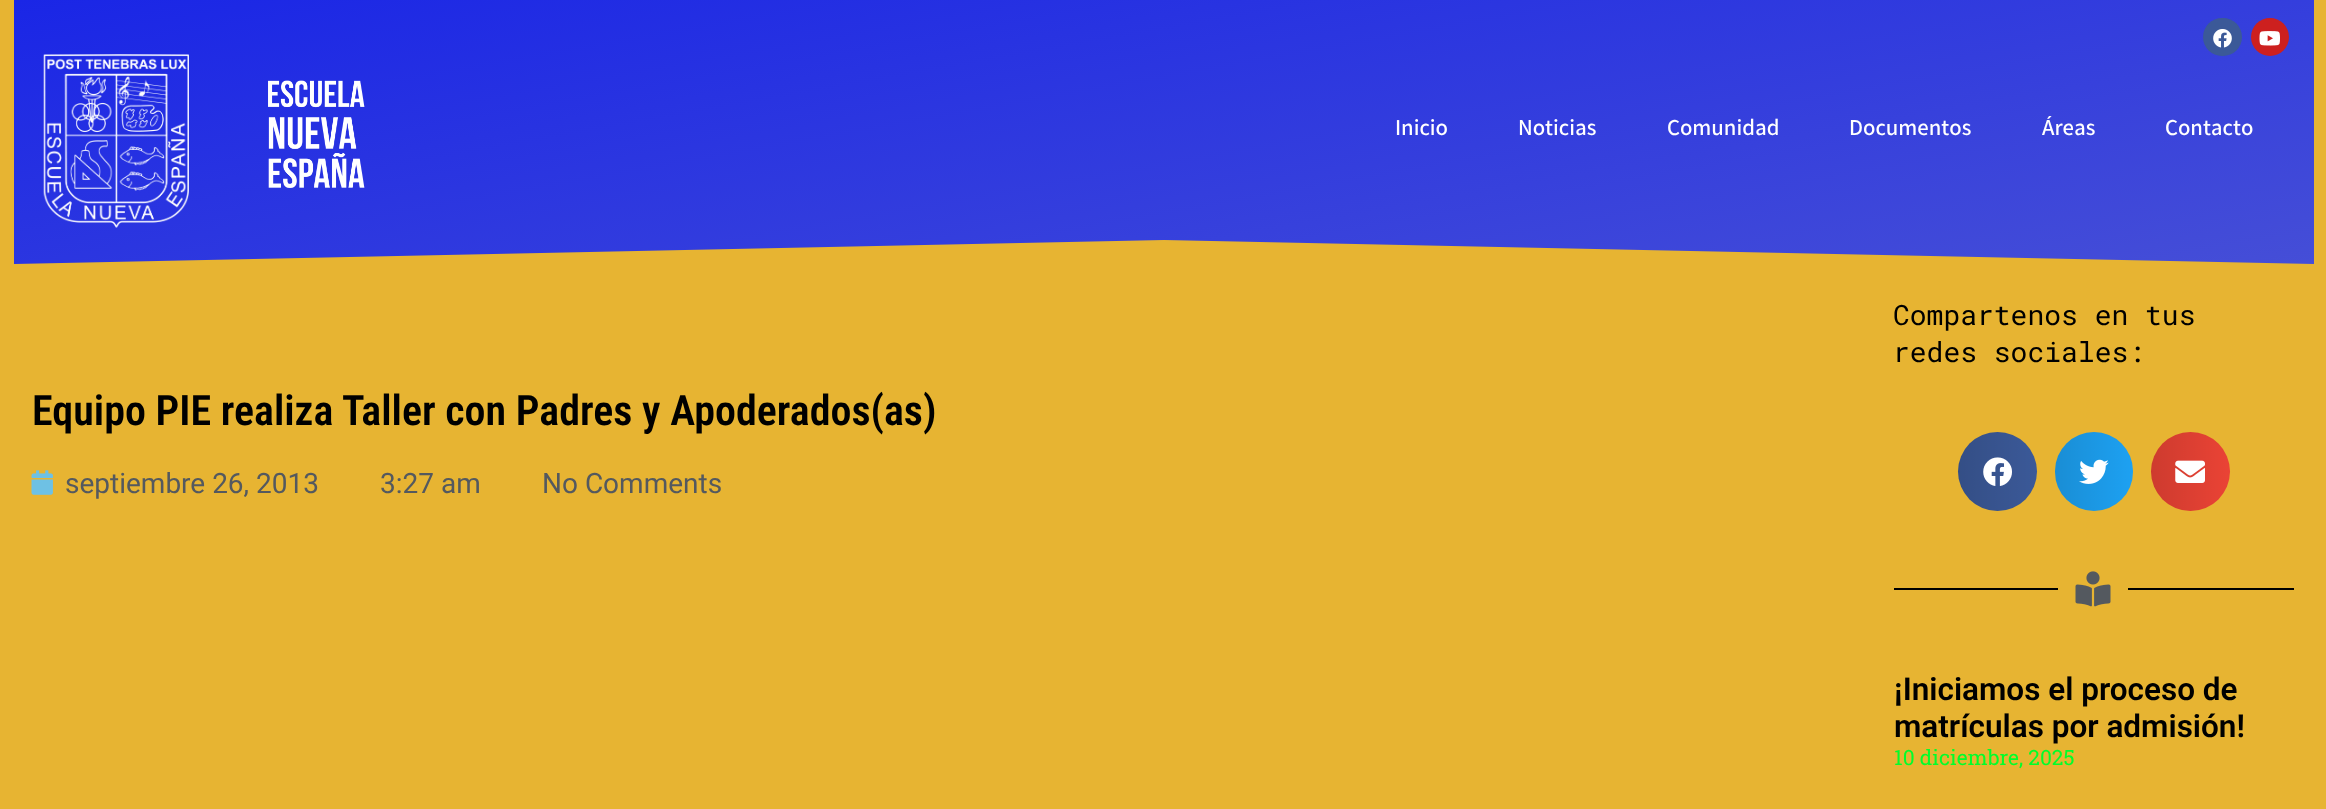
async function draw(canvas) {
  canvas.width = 2326
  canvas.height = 809
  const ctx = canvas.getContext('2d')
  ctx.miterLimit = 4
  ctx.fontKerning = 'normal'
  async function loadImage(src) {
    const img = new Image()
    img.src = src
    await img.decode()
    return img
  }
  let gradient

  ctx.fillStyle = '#e7b432'
  ctx.fillRect(0, 0, 2326, 809)
  gradient = ctx.createLinearGradient(1106, -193, 1221, 457)
  gradient.addColorStop(0, '#1a26e6')
  gradient.addColorStop(1, '#454ed7')
  ctx.fillStyle = gradient
  ctx.fillRect(14, 0, 2300, 264)
  ctx.drawImage(await loadImage('image0.png'), 43, 54, 146, 174)
  ctx.drawImage(await loadImage('image1.png'), 268, 80, 97, 108)
  ctx.fillStyle = '#3b5998'
  ctx.beginPath()
  ctx.roundRect(2203, 18, 39, 38, 19)
  ctx.fill()
  ctx.drawImage(await loadImage('image2.png'), 2213, 29, 19, 19)
  ctx.fillStyle = '#cd201f'
  ctx.beginPath()
  ctx.arc(2270, 37, 19, 0, 2 * Math.PI)
  ctx.fill()
  ctx.drawImage(await loadImage('image3.png'), 2259, 31, 21, 15)
  ctx.font = '600 22.75px Varta'
  ctx.fillStyle = '#fff'
  ctx.fillText('Inicio', 1395, 135)
  ctx.fillText('Noticias', 1518, 135)
  ctx.fillText('Comunidad', 1667, 135)
  ctx.fillText('Documentos', 1849, 135)
  ctx.fillText('Áreas', 2042, 135)
  ctx.fillText('Contacto', 2165, 135)
  ctx.save()
  ctx.beginPath()
  ctx.rect(14, 240, 2300, 26)
  ctx.clip()
  ctx.fillStyle = '#e7b432'
  ctx.beginPath()
  ctx.moveTo(1164, 240)
  ctx.lineTo(2315, 264)
  ctx.lineTo(2315, 266)
  ctx.lineTo(13, 266)
  ctx.lineTo(13, 264)
  ctx.closePath()
  ctx.fill()
  ctx.restore()
  ctx.font = '600 42px Roboto Condensed'
  ctx.fillStyle = '#000'
  ctx.fillText('Equipo PIE realiza Taller con Padres y Apoderados(as)', 32, 425)
  ctx.drawImage(await loadImage('image4.png'), 31, 470, 22, 25)
  ctx.font = '28px Roboto'
  ctx.fillStyle = '#54595f'
  ctx.fillText('septiembre 26, 2013', 65, 493)
  ctx.fillText('3:27 am', 380, 493)
  ctx.fillText('No Comments', 542, 493)
  ctx.font = '28px Roboto Mono'
  ctx.fillStyle = '#000'
  ctx.fillText('Compartenos en tus', 1893, 325)
  ctx.fillText('redes sociales:', 1893, 362)
  ctx.fillStyle = '#3b5998'
  ctx.beginPath()
  ctx.arc(1997.5, 471.5, 39.5, 0, 2 * Math.PI)
  ctx.fill()
  gradient = ctx.createLinearGradient(1958, 472, 2037, 472)
  gradient.addColorStop(0, '#0000001f')
  gradient.addColorStop(1, '#00000000')
  ctx.fillStyle = gradient
  ctx.beginPath()
  ctx.arc(1997.5, 471.5, 39.5, 0, 2 * Math.PI)
  ctx.fill()
  ctx.drawImage(await loadImage('image5.png'), 1983, 457, 29, 29)
  ctx.fillStyle = '#1da1f2'
  ctx.beginPath()
  ctx.roundRect(2055, 432, 78, 79, 39)
  ctx.fill()
  gradient = ctx.createLinearGradient(2055, 472, 2133, 472)
  gradient.addColorStop(0, '#0000001f')
  gradient.addColorStop(1, '#00000000')
  ctx.fillStyle = gradient
  ctx.beginPath()
  ctx.roundRect(2055, 432, 78, 79, 39)
  ctx.fill()
  ctx.drawImage(await loadImage('image6.png'), 2079, 459, 30, 25)
  ctx.fillStyle = '#ea4335'
  ctx.beginPath()
  ctx.arc(2190.5, 471.5, 39.5, 0, 2 * Math.PI)
  ctx.fill()
  gradient = ctx.createLinearGradient(2151, 472, 2230, 472)
  gradient.addColorStop(0, '#0000001f')
  gradient.addColorStop(1, '#00000000')
  ctx.fillStyle = gradient
  ctx.beginPath()
  ctx.arc(2190.5, 471.5, 39.5, 0, 2 * Math.PI)
  ctx.fill()
  ctx.drawImage(await loadImage('image7.png'), 2175, 460, 30, 23)
  ctx.fillStyle = '#000'
  ctx.fillRect(1894, 588, 164, 2)
  ctx.drawImage(await loadImage('image8.png'), 2075, 571, 36, 36)
  ctx.fillRect(2128, 588, 166, 2)
  ctx.font = '600 31.5px Roboto'
  ctx.fillText('¡Iniciamos el proceso de', 1894, 700)
  ctx.fillText('matrículas por admisión!', 1894, 737)
  ctx.font = '21px Roboto Slab'
  ctx.fillStyle = '#01fe2b'
  ctx.fillText('10 diciembre, 2025', 1894, 765)
}

draw(document.querySelector('canvas'))
